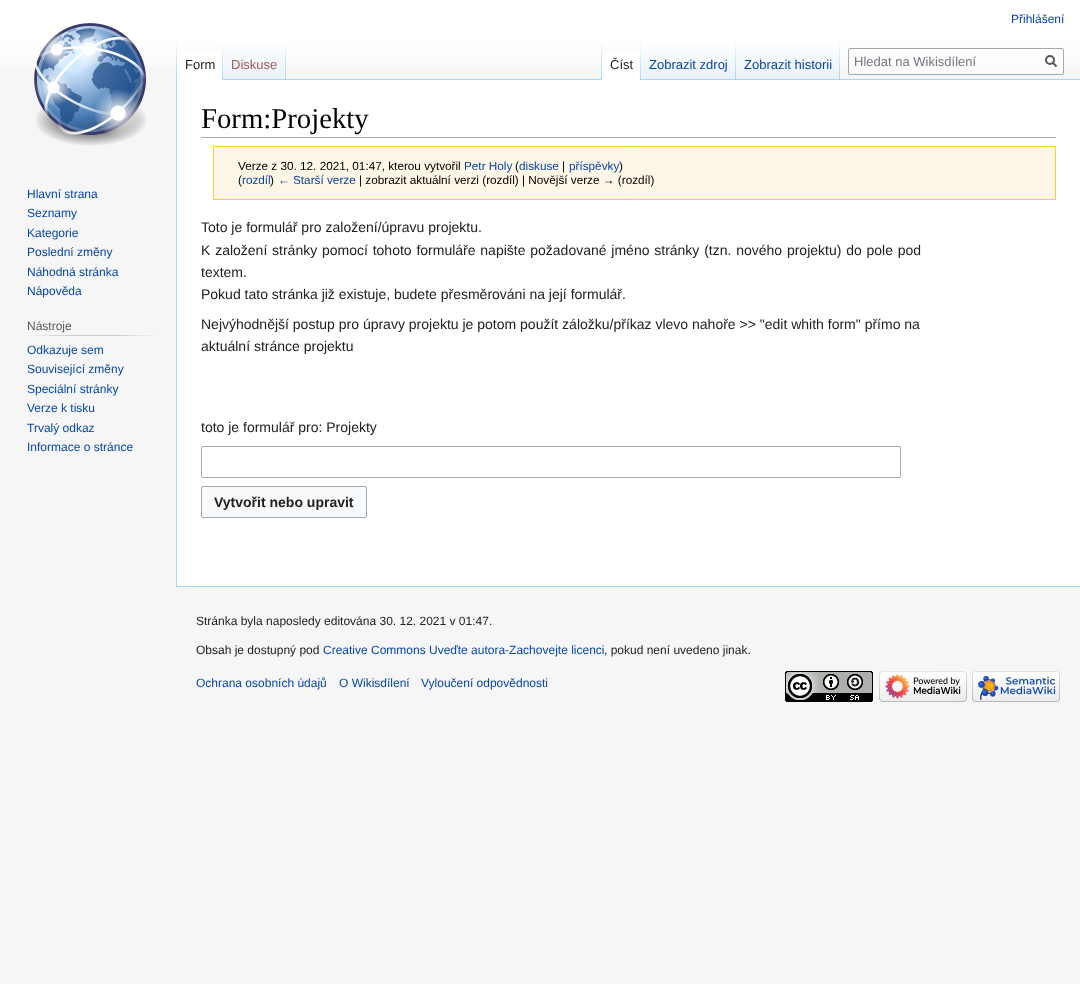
async function draw(canvas) {
  canvas.width = 1080
  canvas.height = 984
  const ctx = canvas.getContext('2d')
  ctx.miterLimit = 4
  ctx.fontKerning = 'normal'
  async function loadImage(src) {
    const img = new Image()
    img.src = src
    await img.decode()
    return img
  }
  let gradient

  ctx.fillStyle = '#f6f6f6'
  ctx.fillRect(0, 0, 1080, 984)
  gradient = ctx.createLinearGradient(540, 0, 540, 80)
  gradient.addColorStop(0.5, '#fff')
  gradient.addColorStop(1, '#f6f6f6')
  ctx.fillStyle = gradient
  ctx.fillRect(0, 0, 1080, 69)
  ctx.font = '12px Liberation Sans'
  ctx.fillStyle = '#0645ad'
  ctx.fillText('Přihlášení', 1011, 23)
  ctx.fillStyle = '#a7d7f9'
  ctx.fillRect(176, 586, 904, 1)
  ctx.fillRect(176, 79, 1, 508)
  gradient = ctx.createLinearGradient(177, 40, 177, 80)
  gradient.addColorStop(0, '#a7d7f900')
  gradient.addColorStop(1, '#a7d7f9')
  ctx.fillStyle = gradient
  ctx.fillRect(176, 40, 1, 40)
  ctx.fillStyle = '#fff'
  ctx.fillRect(177, 51, 45, 29)
  gradient = ctx.createLinearGradient(223, 40, 223, 80)
  gradient.addColorStop(0, '#fff')
  gradient.addColorStop(1, '#a7d7f9')
  ctx.fillStyle = gradient
  ctx.fillRect(222, 40, 1, 40)
  ctx.font = '13px Liberation Sans'
  ctx.fillStyle = '#202122'
  ctx.fillText('Form', 185, 69)
  gradient = ctx.createLinearGradient(255, 80, 255, 40)
  gradient.addColorStop(0, '#77c1f6')
  gradient.addColorStop(0.03, '#e8f2f8')
  gradient.addColorStop(1, '#fff')
  ctx.fillStyle = gradient
  ctx.fillRect(223, 46, 63, 34)
  gradient = ctx.createLinearGradient(286, 40, 286, 80)
  gradient.addColorStop(0, '#a7d7f900')
  gradient.addColorStop(1, '#a7d7f9')
  ctx.fillStyle = gradient
  ctx.fillRect(285, 40, 1, 40)
  ctx.fillStyle = '#a55858'
  ctx.fillText('Diskuse', 231, 69)
  ctx.fillStyle = '#a7d7f9'
  ctx.fillRect(286, 79, 794, 1)
  gradient = ctx.createLinearGradient(602, 40, 602, 80)
  gradient.addColorStop(0, '#a7d7f900')
  gradient.addColorStop(1, '#a7d7f9')
  ctx.fillStyle = gradient
  ctx.fillRect(601, 40, 1, 40)
  ctx.fillStyle = '#fff'
  ctx.fillRect(602, 51, 38, 29)
  gradient = ctx.createLinearGradient(641, 40, 641, 80)
  gradient.addColorStop(0, '#fff')
  gradient.addColorStop(1, '#a7d7f9')
  ctx.fillStyle = gradient
  ctx.fillRect(640, 40, 1, 40)
  ctx.fillStyle = '#202122'
  ctx.fillText('Číst', 610, 69)
  gradient = ctx.createLinearGradient(689, 80, 689, 40)
  gradient.addColorStop(0, '#77c1f6')
  gradient.addColorStop(0.03, '#e8f2f8')
  gradient.addColorStop(1, '#fff')
  ctx.fillStyle = gradient
  ctx.fillRect(641, 46, 95, 33)
  gradient = ctx.createLinearGradient(736, 40, 736, 80)
  gradient.addColorStop(0, '#a7d7f900')
  gradient.addColorStop(1, '#a7d7f9')
  ctx.fillStyle = gradient
  ctx.fillRect(735, 40, 1, 40)
  ctx.fillStyle = '#0645ad'
  ctx.fillText('Zobrazit zdroj', 649, 69)
  gradient = ctx.createLinearGradient(788, 80, 788, 40)
  gradient.addColorStop(0, '#77c1f6')
  gradient.addColorStop(0.03, '#e8f2f8')
  gradient.addColorStop(1, '#fff')
  ctx.fillStyle = gradient
  ctx.fillRect(736, 46, 104, 33)
  gradient = ctx.createLinearGradient(840, 40, 840, 80)
  gradient.addColorStop(0, '#a7d7f900')
  gradient.addColorStop(1, '#a7d7f9')
  ctx.fillStyle = gradient
  ctx.fillRect(839, 40, 1, 40)
  ctx.fillStyle = '#0645ad'
  ctx.fillText('Zobrazit historii', 744, 69)
  ctx.fillStyle = '#ffffff80'
  ctx.beginPath()
  ctx.roundRect(848.5, 48.5, 215, 26, 1.5)
  ctx.fill()
  ctx.strokeStyle = '#a2a9b1'
  ctx.stroke()
  ctx.fillStyle = '#72777d'
  ctx.fillText('Hledat na Wikisdílení', 854, 66)
  ctx.beginPath()
  ctx.moveTo(1056.5, 66.5)
  ctx.lineTo(1052.5, 62.5)
  ctx.strokeStyle = '#54595d'
  ctx.lineWidth = 2
  ctx.stroke()
  ctx.beginPath()
  ctx.arc(1050, 60, 4, 0, 2 * Math.PI)
  ctx.stroke()
  ctx.drawImage(await loadImage('image0.png'), 34, 23, 112, 123)
  ctx.font = '12px Liberation Sans'
  ctx.fillStyle = '#0645ad'
  ctx.fillText('Hlavní strana', 27, 198)
  ctx.fillText('Seznamy', 27, 217)
  ctx.fillText('Kategorie', 27, 237)
  ctx.fillText('Poslední změny', 27, 256)
  ctx.fillText('Náhodná stránka', 27, 276)
  ctx.fillText('Nápověda', 27, 295)
  gradient = ctx.createLinearGradient(27, 336, 158, 336)
  gradient.addColorStop(0, '#f6f6f6')
  gradient.addColorStop(0.33, '#c8ccd1')
  gradient.addColorStop(0.66, '#c8ccd1')
  gradient.addColorStop(1, '#f6f6f6')
  ctx.fillStyle = gradient
  ctx.fillRect(27, 335, 131, 1)
  ctx.fillStyle = '#54595d'
  ctx.fillText('Nástroje', 27, 330)
  ctx.fillStyle = '#0645ad'
  ctx.fillText('Odkazuje sem', 27, 354)
  ctx.fillText('Související změny', 27, 373)
  ctx.fillText('Speciální stránky', 27, 393)
  ctx.fillText('Verze k tisku', 27, 412)
  ctx.fillText('Trvalý odkaz', 27, 432)
  ctx.fillText('Informace o stránce', 27, 451)
  ctx.fillStyle = '#fff'
  ctx.fillRect(177, 80, 903, 506)
  ctx.fillStyle = '#a2a9b1'
  ctx.fillRect(201, 137, 855, 1)
  ctx.font = '28.75px Liberation Serif'
  ctx.fillStyle = '#000'
  ctx.fillText('Form:Projekty', 201, 128)
  ctx.fillStyle = '#fef6e7'
  ctx.beginPath()
  ctx.rect(213.5, 146.5, 842, 53)
  ctx.fill()
  ctx.strokeStyle = '#fc3'
  ctx.lineWidth = 1
  ctx.stroke()
  ctx.font = '11.75px Liberation Sans'
  ctx.fillStyle = '#000'
  ctx.fillText('Verze z 30. 12. 2021, 01:47, kterou vytvořil', 238, 170)
  ctx.fillStyle = '#0645ad'
  ctx.fillText('Petr Holy', 464, 170)
  ctx.fillStyle = '#000'
  ctx.fillText('(', 515, 170)
  ctx.fillStyle = '#0645ad'
  ctx.fillText('diskuse', 519, 170)
  ctx.fillStyle = '#000'
  ctx.fillText('|', 562, 170)
  ctx.fillStyle = '#0645ad'
  ctx.fillText('příspěvky', 569, 170)
  ctx.fillStyle = '#000'
  ctx.fillText(')', 619, 170)
  ctx.fillText('(', 238, 184)
  ctx.fillStyle = '#0645ad'
  ctx.fillText('rozdíl', 242, 184)
  ctx.fillStyle = '#000'
  ctx.fillText(')', 270, 184)
  ctx.fillStyle = '#0645ad'
  ctx.fillText('← Starší verze', 278, 184)
  ctx.fillStyle = '#000'
  ctx.fillText('| zobrazit aktuální verzi (rozdíl) | Novější verze → (rozdíl)', 359, 184)
  ctx.font = '14px Liberation Sans'
  ctx.fillStyle = '#202122'
  ctx.fillText('Toto je formulář pro založení/úpravu projektu.', 201, 232)
  ctx.wordSpacing = '0.9px'
  ctx.fillText('K založení stránky pomocí tohoto formuláře napište požadované jméno stránky (tzn. nového projektu) do pole pod', 201, 255)
  ctx.wordSpacing = '0px'
  ctx.fillText('textem.', 201, 277)
  ctx.fillText('Pokud tato stránka již existuje, budete přesměrováni na její formulář.', 201, 299)
  ctx.fillText('Nejvýhodnější postup pro úpravy projektu je potom použít záložku/příkaz vlevo nahoře >> "edit whith form" přímo na', 201, 329)
  ctx.fillText('aktuální stránce projektu', 201, 351)
  ctx.fillText('toto je formulář pro: Projekty', 201, 432)
  ctx.beginPath()
  ctx.roundRect(201.5, 446.5, 699, 31, 1.5)
  ctx.strokeStyle = '#a2a9b1'
  ctx.stroke()
  ctx.fillStyle = '#f8f9fa'
  ctx.beginPath()
  ctx.roundRect(201.5, 486.5, 165, 31, 1.5)
  ctx.fill()
  ctx.stroke()
  ctx.font = 'bold 14px Liberation Sans'
  ctx.fillStyle = '#202122'
  ctx.fillText('Vytvořit nebo upravit', 214, 507)
  ctx.font = '12px Liberation Sans'
  ctx.fillText('Stránka byla naposledy editována 30. 12. 2021 v 01:47.', 196, 625)
  ctx.fillText('Obsah je dostupný pod', 196, 654)
  ctx.fillStyle = '#0645ad'
  ctx.fillText('Creative Commons Uveďte autora-Zachovejte licenci', 323, 654)
  ctx.fillStyle = '#202122'
  ctx.fillText(', pokud není uvedeno jinak.', 604, 654)
  ctx.fillStyle = '#0645ad'
  ctx.fillText('Ochrana osobních údajů', 196, 687)
  ctx.fillText('O Wikisdílení', 339, 687)
  ctx.fillText('Vyloučení odpovědnosti', 421, 687)
  ctx.drawImage(await loadImage('image1.png'), 785, 671, 88, 31)
  ctx.drawImage(await loadImage('image2.png'), 879, 671, 88, 31)
  ctx.drawImage(await loadImage('image3.png'), 972, 671, 88, 31)
}

draw(document.querySelector('canvas'))
